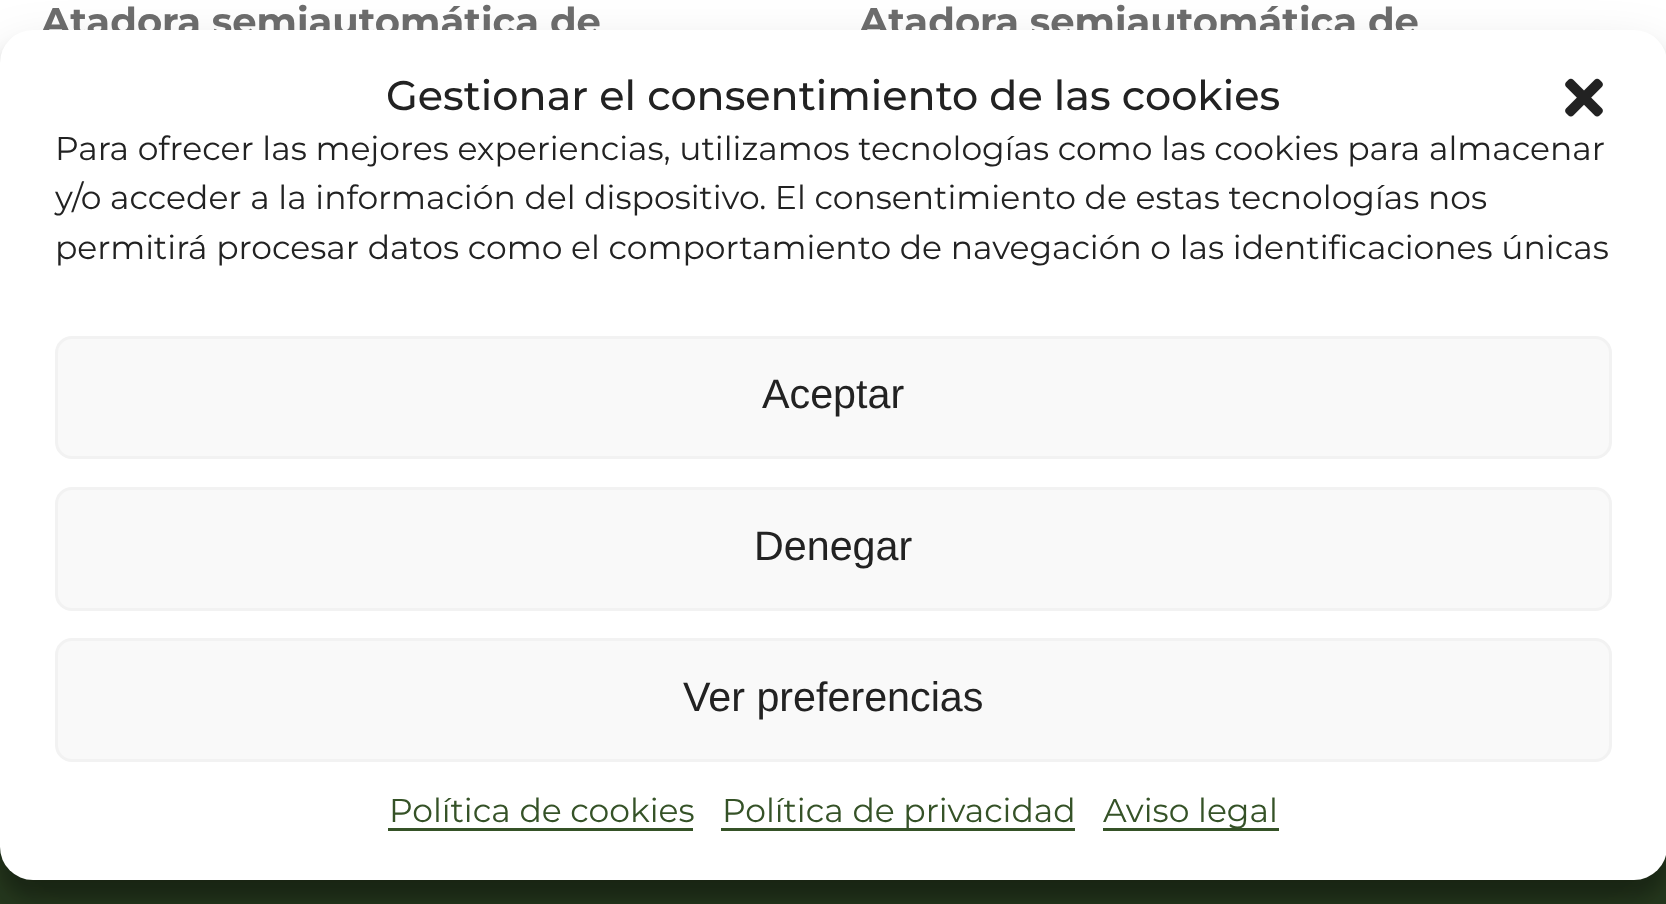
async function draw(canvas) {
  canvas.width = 1666
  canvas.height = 904
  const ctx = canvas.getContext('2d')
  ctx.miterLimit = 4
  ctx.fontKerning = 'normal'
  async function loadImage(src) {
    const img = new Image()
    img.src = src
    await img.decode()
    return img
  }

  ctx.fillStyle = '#fff'
  ctx.fillRect(0, 0, 1666, 904)
  ctx.font = 'bold 38.5px Montserrat'
  ctx.fillStyle = '#6d6d6d'
  ctx.fillText('Atadora semiautomática de', 41, 35)
  ctx.fillText('Atadora semiautomática de', 859, 35)
  ctx.fillStyle = '#273a1f'
  ctx.fillRect(0, 847, 1666, 57)
  ctx.fillStyle = '#0000003b'
  ctx.filter = 'blur(8px)'
  ctx.beginPath()
  ctx.roundRect(0, 47, 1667, 850, 33)
  ctx.fill()
  ctx.filter = 'none'
  ctx.fillStyle = '#00000030'
  ctx.filter = 'blur(27.5px)'
  ctx.beginPath()
  ctx.roundRect(0, 58, 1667, 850, 33)
  ctx.fill()
  ctx.filter = 'none'
  ctx.fillStyle = '#fff'
  ctx.beginPath()
  ctx.roundRect(0, 30, 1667, 850, 33)
  ctx.fill()
  ctx.font = '500 41.25px Montserrat'
  ctx.fillStyle = '#222'
  ctx.fillText('Gestionar el consentimiento de las cookies', 386, 110)
  ctx.drawImage(await loadImage('image0.png'), 1565, 78, 38, 39)
  ctx.font = '33px Montserrat'
  ctx.fillText('Para ofrecer las mejores experiencias, utilizamos tecnologías como las cookies para almacenar', 55, 160)
  ctx.fillText('y/o acceder a la información del dispositivo. El consentimiento de estas tecnologías nos', 55, 209)
  ctx.fillText('permitirá procesar datos como el comportamiento de navegación o las identificaciones únicas', 55, 259)
  ctx.fillStyle = '#f9f9f9'
  ctx.beginPath()
  ctx.roundRect(56.5, 337.5, 1554, 120, 15.5)
  ctx.fill()
  ctx.strokeStyle = '#f2f2f2'
  ctx.lineWidth = 3
  ctx.stroke()
  ctx.font = '41.25px Liberation Sans'
  ctx.fillStyle = '#222'
  ctx.fillText('Aceptar', 762, 408)
  ctx.fillStyle = '#f9f9f9'
  ctx.beginPath()
  ctx.roundRect(56.5, 488.5, 1554, 121, 15.5)
  ctx.fill()
  ctx.stroke()
  ctx.fillStyle = '#222'
  ctx.fillText('Denegar', 754, 560)
  ctx.fillStyle = '#f9f9f9'
  ctx.beginPath()
  ctx.roundRect(56.5, 639.5, 1554, 121, 15.5)
  ctx.fill()
  ctx.stroke()
  ctx.fillStyle = '#222'
  ctx.fillText('Ver preferencias', 683, 711)
  ctx.font = '33px Montserrat'
  ctx.fillStyle = '#355227'
  ctx.fillText('Política de cookies', 389, 822)
  ctx.fillRect(388, 828, 305, 3)
  ctx.fillRect(721, 828, 354, 3)
  ctx.fillText('Política de privacidad', 722, 822)
  ctx.fillRect(1103, 828, 176, 3)
  ctx.fillText('Aviso legal', 1103, 822)
}

draw(document.querySelector('canvas'))
